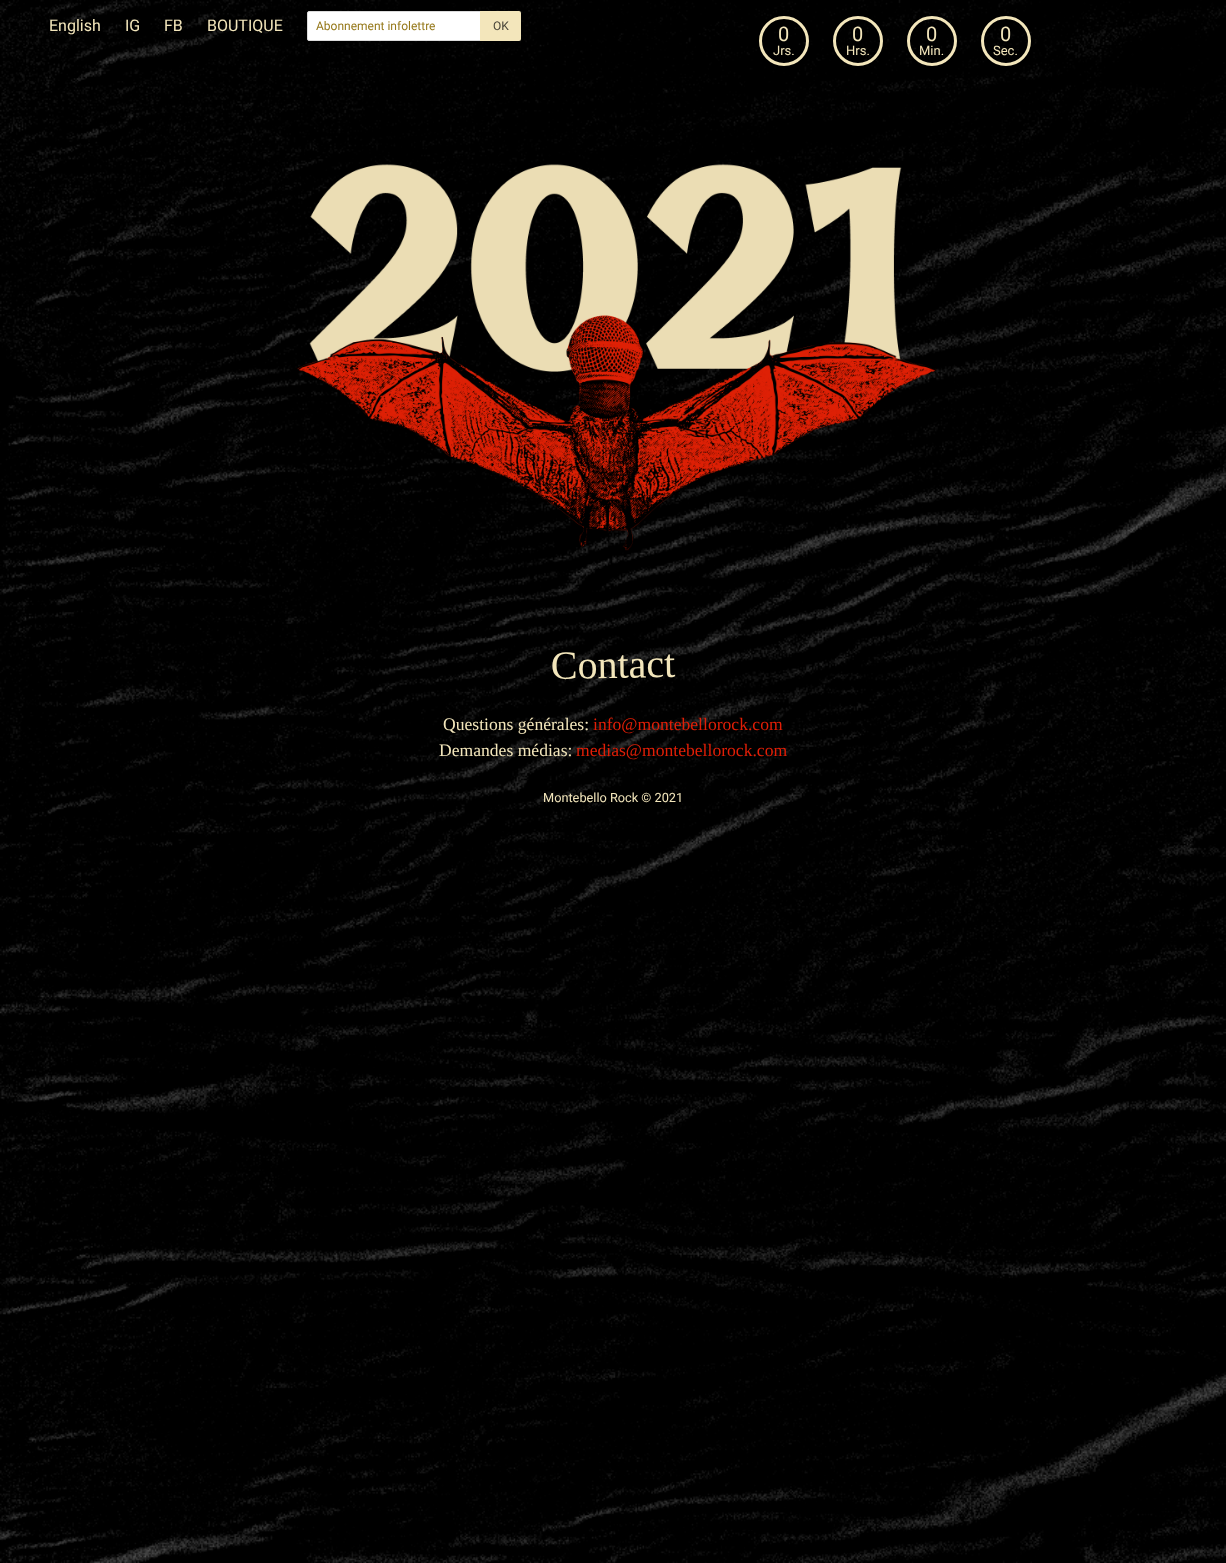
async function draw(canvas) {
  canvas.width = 1226
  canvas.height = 1563
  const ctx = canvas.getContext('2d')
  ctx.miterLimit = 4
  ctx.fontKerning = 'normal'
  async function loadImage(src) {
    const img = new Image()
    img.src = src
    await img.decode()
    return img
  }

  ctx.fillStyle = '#fff'
  ctx.fillRect(0, 0, 1226, 1563)
  ctx.drawImage(await loadImage('image0.png'), 0, 0, 1226, 1563)
  ctx.font = '16px Roboto'
  ctx.fillStyle = '#f3e6bb'
  ctx.fillText('English', 49, 31)
  ctx.fillText('IG', 125, 31)
  ctx.fillText('FB', 164, 31)
  ctx.fillText('BOUTIQUE', 207, 31)
  ctx.fillStyle = '#fff'
  ctx.beginPath()
  ctx.roundRect(307.5, 11.5, 173, 29, [1.5, 0, 0, 1.5])
  ctx.fill()
  ctx.strokeStyle = '#dbdbdb'
  ctx.stroke()
  ctx.font = '12px Roboto'
  ctx.fillStyle = '#95781a'
  ctx.fillText('Abonnement infolettre', 316, 30)
  ctx.fillStyle = '#f3e6bb'
  ctx.beginPath()
  ctx.roundRect(480, 11, 41, 30, [0, 2, 2, 0])
  ctx.fill()
  ctx.fillStyle = '#494538'
  ctx.fillText('OK', 493, 30)
  ctx.beginPath()
  ctx.arc(784, 41, 23.5, 0, 2 * Math.PI)
  ctx.strokeStyle = '#f3e6bb'
  ctx.lineWidth = 3
  ctx.stroke()
  ctx.font = '20px Roboto'
  ctx.fillStyle = '#f3e6bb'
  ctx.fillText('0', 778, 41)
  ctx.font = '13px Roboto'
  ctx.fillText('Jrs.', 773, 55)
  ctx.beginPath()
  ctx.arc(858, 41, 23.5, 0, 2 * Math.PI)
  ctx.stroke()
  ctx.font = '20px Roboto'
  ctx.fillText('0', 852, 41)
  ctx.font = '13px Roboto'
  ctx.fillText('Hrs.', 846, 55)
  ctx.beginPath()
  ctx.arc(932, 41, 23.5, 0, 2 * Math.PI)
  ctx.stroke()
  ctx.font = '20px Roboto'
  ctx.fillText('0', 926, 41)
  ctx.font = '13px Roboto'
  ctx.fillText('Min.', 919, 55)
  ctx.beginPath()
  ctx.arc(1006, 41, 23.5, 0, 2 * Math.PI)
  ctx.stroke()
  ctx.font = '20px Roboto'
  ctx.fillText('0', 1000, 41)
  ctx.font = '13px Roboto'
  ctx.fillText('Sec.', 993, 55)
  ctx.drawImage(await loadImage('image1.png'), 297, 164, 640, 387)
  ctx.font = '40px Liberation Serif'
  ctx.save()
  ctx.translate(551, 679)
  ctx.rotate(-1 * Math.PI / 180)
  ctx.fillText('Contact', 0, 0)
  ctx.restore()
  ctx.font = '17.6px Liberation Serif'
  ctx.fillText('Questions générales:', 443, 730)
  ctx.fillStyle = '#e21e06'
  ctx.fillText('info@montebellorock.com', 593, 730)
  ctx.fillStyle = '#f3e6bb'
  ctx.fillText('Demandes médias:', 439, 756)
  ctx.fillStyle = '#e21e06'
  ctx.fillText('medias@montebellorock.com', 576, 756)
  ctx.font = '12.75px Roboto'
  ctx.fillStyle = '#f3e6bb'
  ctx.fillText('Montebello Rock © 2021', 543, 802)
}

draw(document.querySelector('canvas'))
